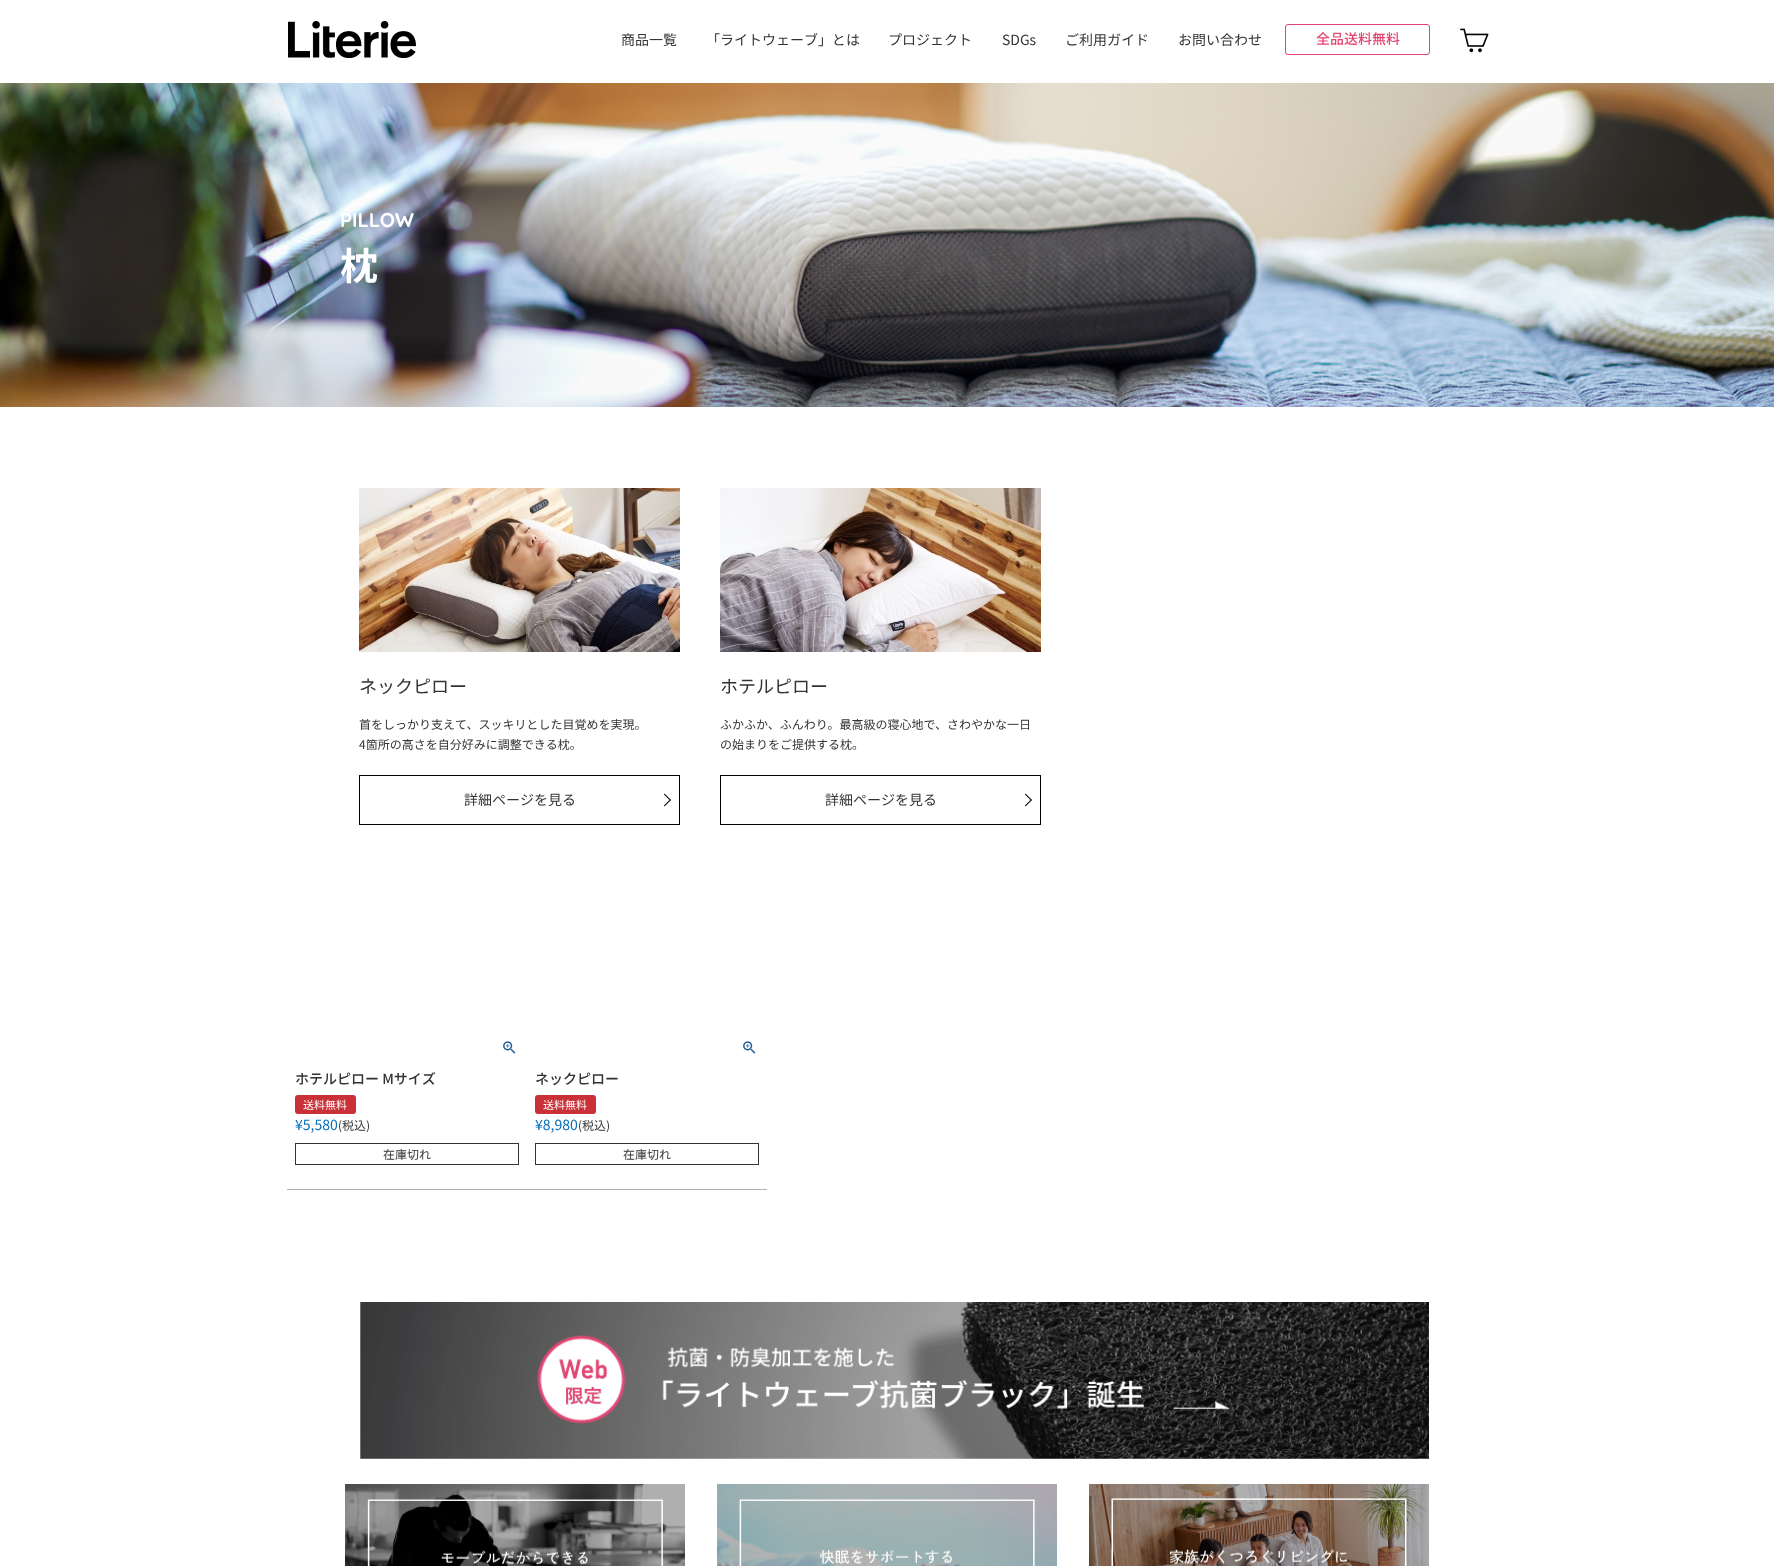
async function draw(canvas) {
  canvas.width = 1774
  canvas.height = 1566
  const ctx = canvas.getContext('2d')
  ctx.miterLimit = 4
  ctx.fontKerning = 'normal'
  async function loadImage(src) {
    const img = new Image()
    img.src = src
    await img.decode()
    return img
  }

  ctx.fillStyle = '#fff'
  ctx.fillRect(0, 0, 1774, 1566)
  ctx.drawImage(await loadImage('image0.png'), 288, 21, 128, 37)
  ctx.font = '14px Noto Sans JP'
  ctx.fillStyle = '#333'
  ctx.fillText('商品一覧', 621, 45)
  ctx.fillText('「ライトウェーブ」とは', 706, 45)
  ctx.fillText('プロジェクト', 888, 45)
  ctx.fillText('SDGs', 1002, 45)
  ctx.fillText('ご利用ガイド', 1065, 45)
  ctx.fillText('お問い合わせ', 1178, 45)
  ctx.beginPath()
  ctx.roundRect(1285.5, 24.5, 144, 30, 2.5)
  ctx.strokeStyle = '#e34572'
  ctx.stroke()
  ctx.font = '500 14px Noto Sans JP'
  ctx.fillStyle = '#e34572'
  ctx.fillText('全品送料無料', 1316, 44)
  ctx.drawImage(await loadImage('image1.png'), 1460, 28, 29, 25)
  ctx.drawImage(await loadImage('image2.png'), 0, 83, 1774, 324)
  ctx.font = 'bold 20px Quicksand'
  ctx.fillStyle = '#fff'
  ctx.fillText('PILLOW', 340, 227)
  ctx.font = 'bold 38px Noto Sans JP'
  ctx.fillText('枕', 340, 280)
  ctx.drawImage(await loadImage('image3.png'), 359, 488, 321, 164)
  ctx.font = '18px Noto Sans JP'
  ctx.fillStyle = '#333'
  ctx.fillText('ネックピロー', 359, 693)
  ctx.font = '12px Noto Sans JP'
  ctx.fillText('首をしっかり支えて、スッキリとした目覚めを実現。', 359, 729)
  ctx.fillText('4箇所の高さを自分好みに調整できる枕。', 359, 749)
  ctx.strokeStyle = '#000'
  ctx.strokeRect(359.5, 775.5, 320, 49)
  ctx.font = '14px Noto Sans JP'
  ctx.fillText('詳細ページを見る', 464, 805)
  ctx.fillStyle = '#000'
  ctx.beginPath()
  ctx.moveTo(664, 794.5)
  ctx.lineTo(664.5, 793.5)
  ctx.lineTo(671, 800)
  ctx.lineTo(670, 800.5)
  ctx.closePath()
  ctx.fill()
  ctx.beginPath()
  ctx.moveTo(664, 805.5)
  ctx.lineTo(670, 799.5)
  ctx.lineTo(671, 800)
  ctx.lineTo(664.5, 806.5)
  ctx.closePath()
  ctx.fill()
  ctx.drawImage(await loadImage('image4.png'), 720, 488, 321, 164)
  ctx.font = '18px Noto Sans JP'
  ctx.fillStyle = '#333'
  ctx.fillText('ホテルピロー', 720, 693)
  ctx.font = '12px Noto Sans JP'
  ctx.fillText('ふかふか、ふんわり。最高級の寝心地で、さわやかな一日', 720, 729)
  ctx.fillText('の始まりをご提供する枕。', 720, 749)
  ctx.strokeRect(720.5, 775.5, 320, 49)
  ctx.font = '14px Noto Sans JP'
  ctx.fillText('詳細ページを見る', 825, 805)
  ctx.fillStyle = '#000'
  ctx.beginPath()
  ctx.moveTo(1025, 794.5)
  ctx.lineTo(1025.5, 793.5)
  ctx.lineTo(1032, 800)
  ctx.lineTo(1031, 800.5)
  ctx.closePath()
  ctx.fill()
  ctx.beginPath()
  ctx.moveTo(1025, 805.5)
  ctx.lineTo(1031, 799.5)
  ctx.lineTo(1032, 800)
  ctx.lineTo(1025.5, 806.5)
  ctx.closePath()
  ctx.fill()
  ctx.fillStyle = '#b2b2b2'
  ctx.fillRect(287, 1189, 480, 1)
  ctx.drawImage(await loadImage('image5.png'), 503, 1041, 13, 13)
  ctx.font = '500 14px Noto Sans JP'
  ctx.fillStyle = '#333'
  ctx.fillText('ホテルピロー Mサイズ', 295, 1084)
  ctx.fillStyle = '#c93037'
  ctx.beginPath()
  ctx.roundRect(295, 1095, 61, 19, 3)
  ctx.fill()
  ctx.font = '11px Noto Sans JP'
  ctx.fillStyle = '#fff'
  ctx.fillText('送料無料', 303, 1109)
  ctx.font = '14px Noto Sans JP'
  ctx.fillStyle = '#006db8'
  ctx.fillText('¥5,580', 295, 1130)
  ctx.font = '12px Noto Sans JP'
  ctx.fillStyle = '#333'
  ctx.fillText('(税込)', 338, 1130)
  ctx.strokeStyle = '#333'
  ctx.strokeRect(295.5, 1143.5, 223, 21)
  ctx.fillText('在庫切れ', 383, 1159)
  ctx.drawImage(await loadImage('image5.png'), 743, 1041, 13, 13)
  ctx.font = '500 14px Noto Sans JP'
  ctx.fillText('ネックピロー', 535, 1084)
  ctx.fillStyle = '#c93037'
  ctx.beginPath()
  ctx.roundRect(535, 1095, 61, 19, 3)
  ctx.fill()
  ctx.font = '11px Noto Sans JP'
  ctx.fillStyle = '#fff'
  ctx.fillText('送料無料', 543, 1109)
  ctx.font = '14px Noto Sans JP'
  ctx.fillStyle = '#006db8'
  ctx.fillText('¥8,980', 535, 1130)
  ctx.font = '12px Noto Sans JP'
  ctx.fillStyle = '#333'
  ctx.fillText('(税込)', 578, 1130)
  ctx.strokeRect(535.5, 1143.5, 223, 21)
  ctx.fillText('在庫切れ', 623, 1159)
  ctx.drawImage(await loadImage('image6.png'), 360, 1302, 1069, 157)
  ctx.drawImage(await loadImage('image7.png'), 345, 1484, 340, 82)
  ctx.drawImage(await loadImage('image8.png'), 717, 1484, 340, 82)
  ctx.drawImage(await loadImage('image9.png'), 1089, 1484, 340, 82)
}

draw(document.querySelector('canvas'))
